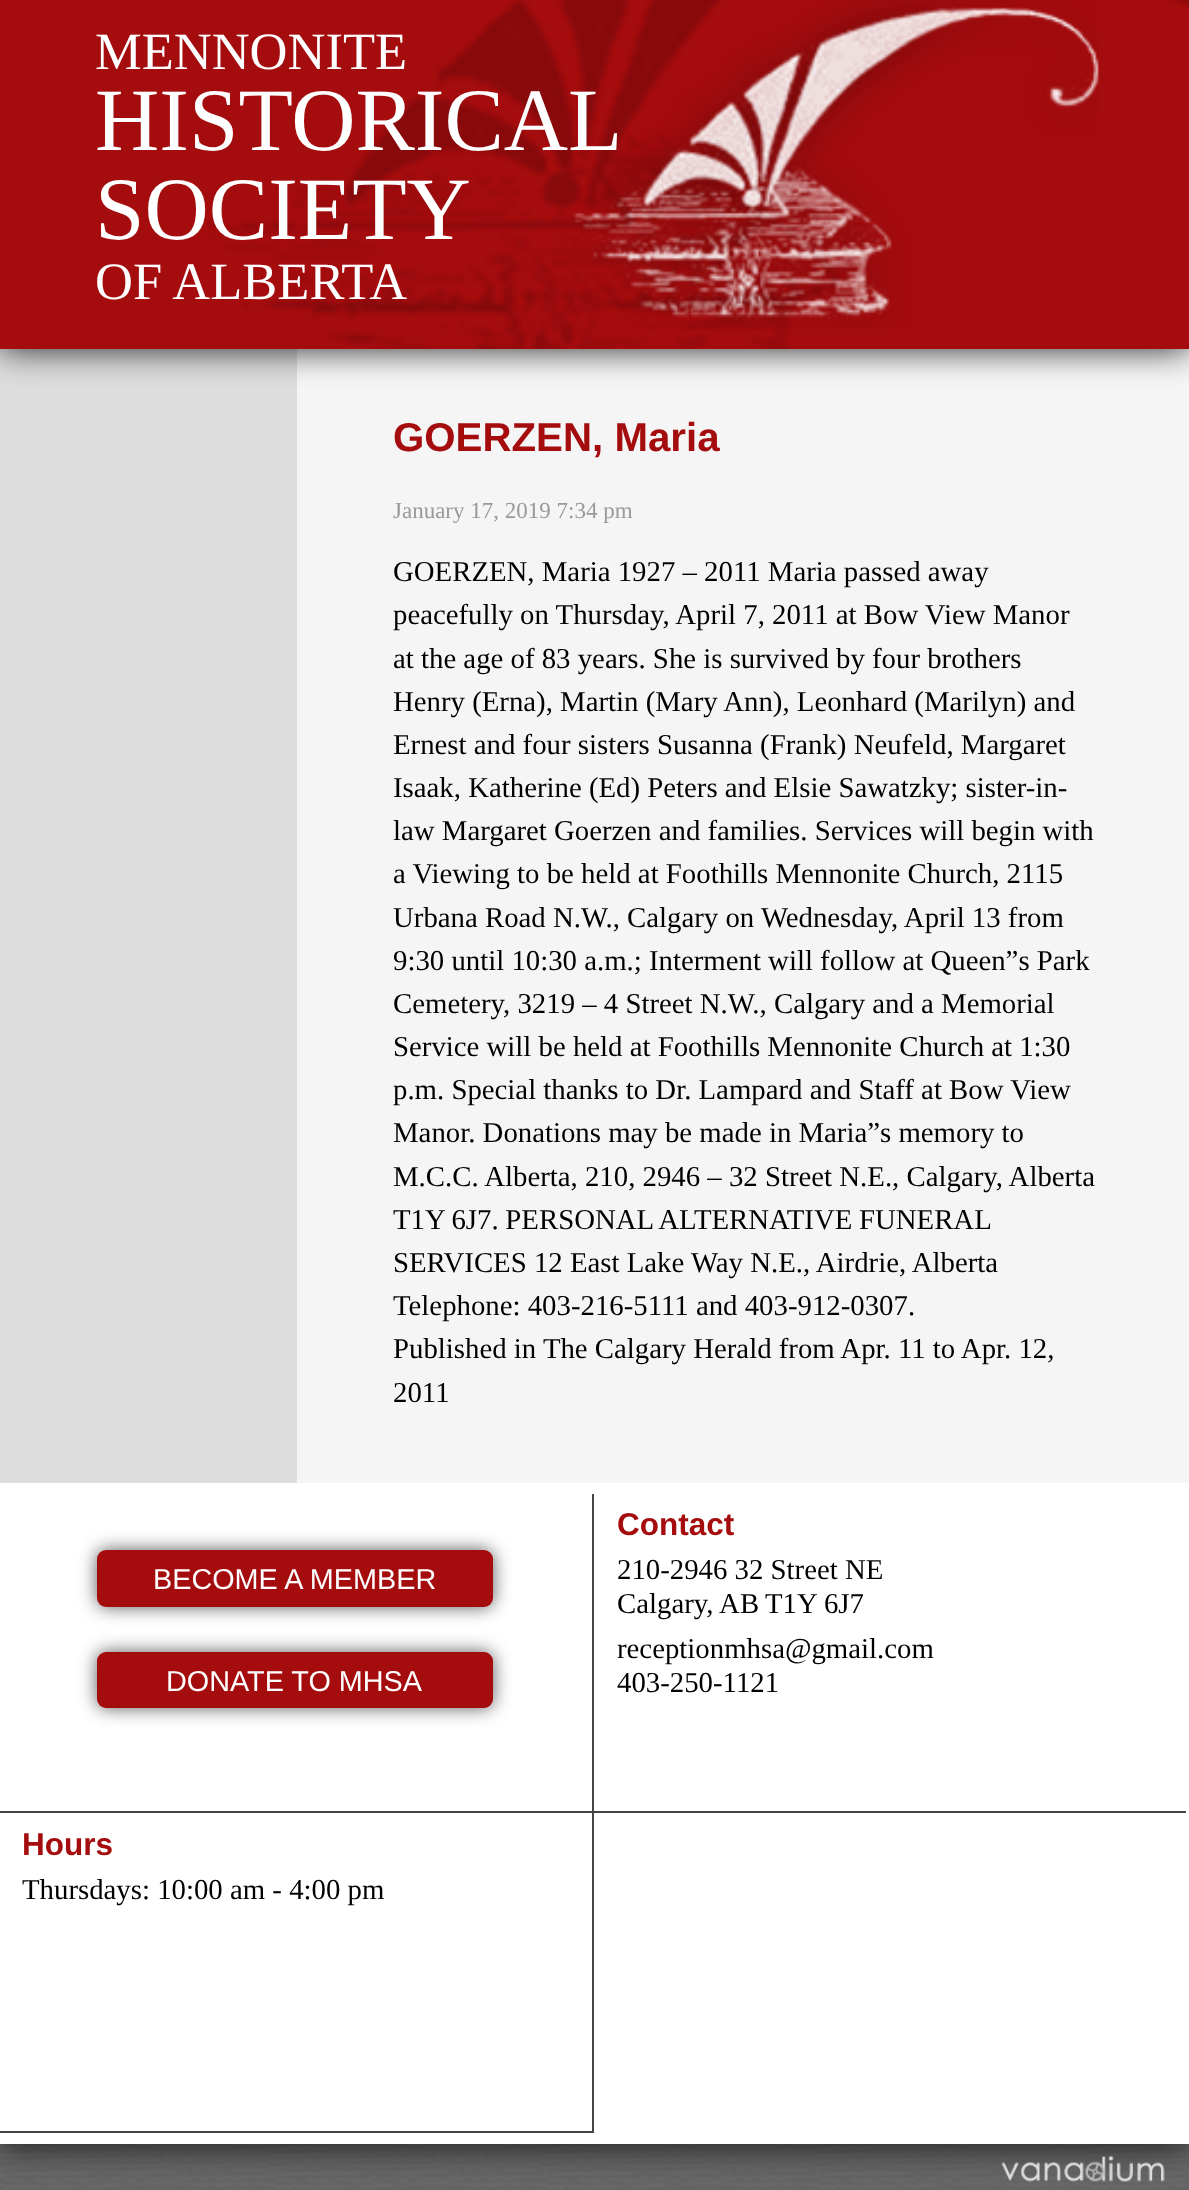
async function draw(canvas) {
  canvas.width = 1189
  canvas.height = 2190
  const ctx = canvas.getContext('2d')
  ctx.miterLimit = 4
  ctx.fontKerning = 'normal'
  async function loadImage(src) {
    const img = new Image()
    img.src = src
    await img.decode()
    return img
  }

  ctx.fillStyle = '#fff'
  ctx.fillRect(0, 0, 1189, 2190)
  ctx.drawImage(await loadImage('image0.png'), 0, 2144, 1189, 46)
  ctx.fillStyle = '#000000d9'
  ctx.filter = 'blur(17px)'
  ctx.beginPath()
  ctx.rect(0, -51, 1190, 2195)
  ctx.fill()
  ctx.filter = 'none'
  ctx.fillStyle = '#fff'
  ctx.fillRect(0, 1483, 1189, 661)
  ctx.fillStyle = '#f5f5f5'
  ctx.fillRect(297, 349, 892, 1134)
  ctx.fillStyle = '#ddd'
  ctx.fillRect(0, 349, 297, 1134)
  ctx.fillStyle = '#000000d9'
  ctx.filter = 'blur(17px)'
  ctx.beginPath()
  ctx.rect(0, -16, 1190, 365)
  ctx.fill()
  ctx.filter = 'none'
  ctx.fillStyle = '#a50c0e'
  ctx.fillRect(0, 0, 1189, 349)
  ctx.drawImage(await loadImage('image1.png'), 207, 0, 982, 349)
  ctx.drawImage(await loadImage('image2.png'), 573, 0, 526, 329)
  ctx.font = '52.5px Liberation Serif'
  ctx.fillStyle = '#fff'
  ctx.fillText('MENNONITE', 95, 69)
  ctx.font = '89px Liberation Serif'
  ctx.fillText('HISTORICAL', 95, 150)
  ctx.fillText('SOCIETY', 95, 239)
  ctx.font = '52.5px Liberation Serif'
  ctx.fillText('OF ALBERTA', 95, 299)
  ctx.font = 'bold 40.25px Liberation Sans'
  ctx.fillStyle = '#a50c0e'
  ctx.fillText('GOERZEN, Maria', 393, 451)
  ctx.font = '23px Liberation Serif'
  ctx.fillStyle = '#999'
  ctx.fillText('January 17, 2019 7:34 pm', 393, 518)
  ctx.font = '28.8px Liberation Serif'
  ctx.fillStyle = '#000'
  ctx.fillText('GOERZEN, Maria 1927 – 2011 Maria passed away', 393, 581)
  ctx.fillText('peacefully on Thursday, April 7, 2011 at Bow View Manor', 393, 624)
  ctx.fillText('at the age of 83 years. She is survived by four brothers', 393, 668)
  ctx.fillText('Henry (Erna), Martin (Mary Ann), Leonhard (Marilyn) and', 393, 711)
  ctx.fillText('Ernest and four sisters Susanna (Frank) Neufeld, Margaret', 393, 754)
  ctx.fillText('Isaak, Katherine (Ed) Peters and Elsie Sawatzky; sister-in-', 393, 797)
  ctx.fillText('law Margaret Goerzen and families. Services will begin with', 393, 840)
  ctx.fillText('a Viewing to be held at Foothills Mennonite Church, 2115', 393, 883)
  ctx.fillText('Urbana Road N.W., Calgary on Wednesday, April 13 from', 393, 927)
  ctx.fillText('9:30 until 10:30 a.m.; Interment will follow at Queen”s Park', 393, 970)
  ctx.fillText('Cemetery, 3219 – 4 Street N.W., Calgary and a Memorial', 393, 1013)
  ctx.fillText('Service will be held at Foothills Mennonite Church at 1:30', 393, 1056)
  ctx.fillText('p.m. Special thanks to Dr. Lampard and Staff at Bow View', 393, 1099)
  ctx.fillText('Manor. Donations may be made in Maria”s memory to', 393, 1142)
  ctx.fillText('M.C.C. Alberta, 210, 2946 – 32 Street N.E., Calgary, Alberta', 393, 1186)
  ctx.wordSpacing = '-0.5px'
  ctx.fillText('T1Y 6J7. PERSONAL ALTERNATIVE FUNERAL', 393, 1229)
  ctx.wordSpacing = '0px'
  ctx.fillText('SERVICES 12 East Lake Way N.E., Airdrie, Alberta', 393, 1272)
  ctx.fillText('Telephone: 403-216-5111 and 403-912-0307.', 393, 1315)
  ctx.fillText('Published in The Calgary Herald from Apr. 11 to Apr. 12,', 393, 1358)
  ctx.fillText('2011', 393, 1402)
  ctx.fillStyle = '#444'
  ctx.fillRect(592, 1494, 2, 639)
  ctx.fillRect(0, 1811, 1186, 2)
  ctx.fillStyle = '#000000a6'
  ctx.filter = 'blur(9px)'
  ctx.beginPath()
  ctx.roundRect(97, 1550, 396, 57, 9)
  ctx.fill()
  ctx.filter = 'none'
  ctx.fillStyle = '#a50c0e'
  ctx.beginPath()
  ctx.roundRect(97, 1550, 396, 57, 9)
  ctx.fill()
  ctx.font = '28.8px Liberation Sans'
  ctx.fillStyle = '#fff'
  ctx.fillText('BECOME A MEMBER', 153, 1589)
  ctx.fillStyle = '#000000a6'
  ctx.filter = 'blur(9px)'
  ctx.beginPath()
  ctx.roundRect(97, 1652, 396, 56, 9)
  ctx.fill()
  ctx.filter = 'none'
  ctx.fillStyle = '#a50c0e'
  ctx.beginPath()
  ctx.roundRect(97, 1652, 396, 56, 9)
  ctx.fill()
  ctx.fillStyle = '#fff'
  ctx.fillText('DONATE TO MHSA', 166, 1691)
  ctx.font = 'bold 31.5px Liberation Sans'
  ctx.fillStyle = '#a50c0e'
  ctx.fillText('Contact', 617, 1535)
  ctx.font = '28.8px Liberation Serif'
  ctx.fillStyle = '#000'
  ctx.fillText('210-2946 32 Street NE', 617, 1579)
  ctx.fillText('Calgary, AB', 617, 1613)
  ctx.fillText('T1Y 6J7', 765, 1613)
  ctx.fillText('receptionmhsa@gmail.com', 617, 1658)
  ctx.fillText('403-250-1121', 617, 1692)
  ctx.fillStyle = '#444'
  ctx.fillRect(0, 2131, 594, 2)
  ctx.font = 'bold 31.5px Liberation Sans'
  ctx.fillStyle = '#a50c0e'
  ctx.fillText('Hours', 22, 1855)
  ctx.font = '28.8px Liberation Serif'
  ctx.fillStyle = '#000'
  ctx.fillText('Thursdays: 10:00 am - 4:00 pm', 22, 1899)
  ctx.drawImage(await loadImage('image3.png'), 1001, 2155, 164, 27)
}

draw(document.querySelector('canvas'))
